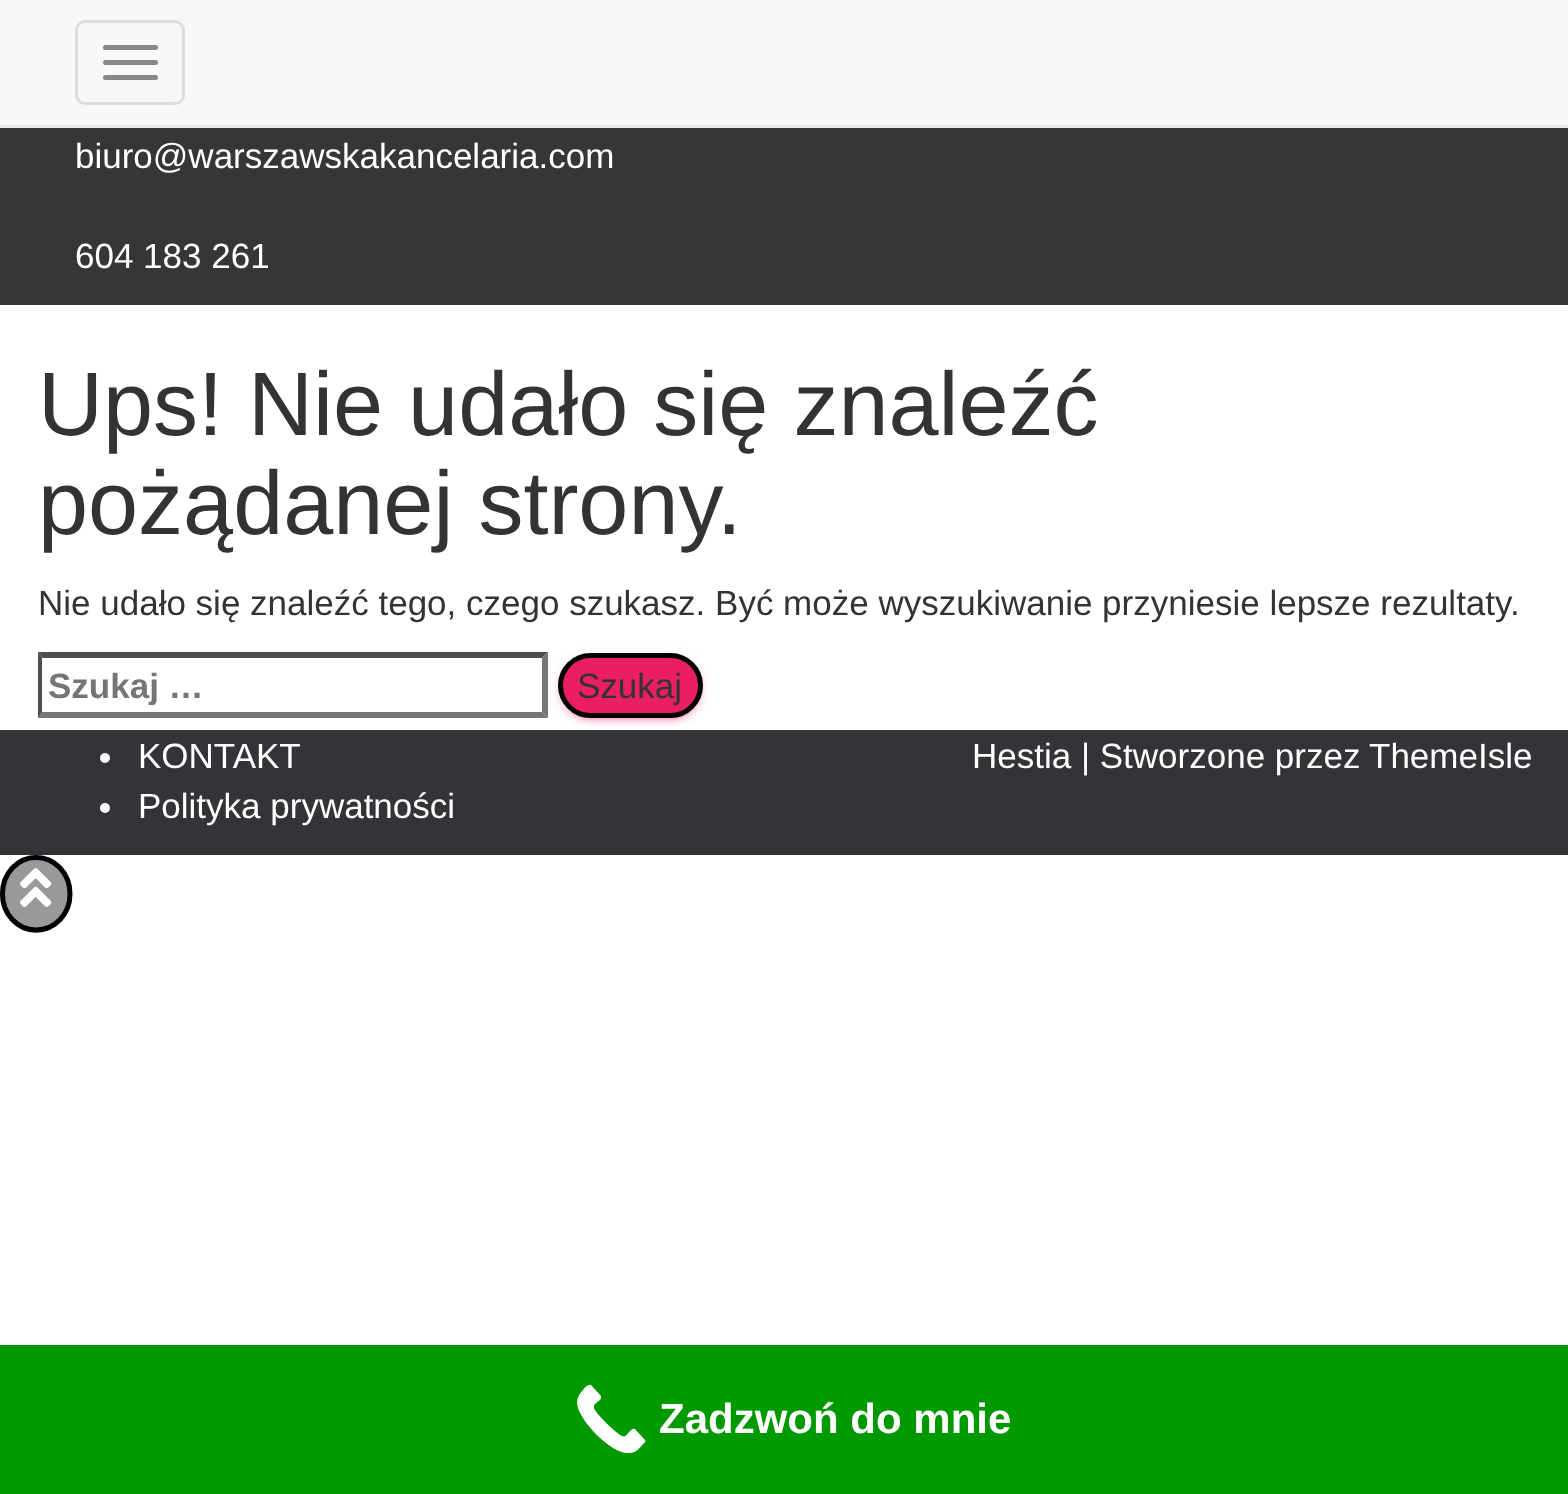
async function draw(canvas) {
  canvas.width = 1568
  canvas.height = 1494
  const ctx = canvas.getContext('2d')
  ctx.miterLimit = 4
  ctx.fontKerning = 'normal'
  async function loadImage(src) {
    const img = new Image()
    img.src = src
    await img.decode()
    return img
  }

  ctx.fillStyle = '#fff'
  ctx.fillRect(0, 0, 1568, 1494)
  ctx.fillStyle = '#f8f8f8'
  ctx.fillRect(0, 0, 1568, 125)
  ctx.fillStyle = '#e7e7e7'
  ctx.fillRect(0, 125, 1568, 3)
  ctx.beginPath()
  ctx.roundRect(76.5, 21.5, 107, 82, 8.5)
  ctx.strokeStyle = '#ddd'
  ctx.lineWidth = 3
  ctx.stroke()
  ctx.fillStyle = '#888'
  ctx.beginPath()
  ctx.roundRect(103, 45, 55, 5, 2.5)
  ctx.fill()
  ctx.beginPath()
  ctx.roundRect(103, 60, 55, 5, 2.5)
  ctx.fill()
  ctx.beginPath()
  ctx.roundRect(103, 75, 55, 5, 2.5)
  ctx.fill()
  ctx.fillStyle = '#363537'
  ctx.fillRect(0, 128, 1568, 177)
  ctx.font = '35px Liberation Sans'
  ctx.fillStyle = '#fff'
  ctx.fillText('biuro@warszawskakancelaria.com', 75, 168)
  ctx.fillText('604 183 261', 75, 268)
  ctx.font = '90px Liberation Sans'
  ctx.fillStyle = '#333'
  ctx.fillText('Ups! Nie udało się znaleźć', 38, 435)
  ctx.fillText('pożądanej strony.', 38, 534)
  ctx.font = '35px Liberation Sans'
  ctx.fillText('Nie udało się znaleźć tego, czego szukasz. Być może wyszukiwanie przyniesie lepsze rezultaty.', 38, 615)
  ctx.fillStyle = '#4f4f4f'
  ctx.beginPath()
  ctx.moveTo(38, 652)
  ctx.lineTo(548, 652)
  ctx.lineTo(542, 658)
  ctx.lineTo(42, 658)
  ctx.closePath()
  ctx.fill()
  ctx.fillStyle = '#767676'
  ctx.beginPath()
  ctx.moveTo(548, 652)
  ctx.lineTo(548, 718)
  ctx.lineTo(542, 712)
  ctx.lineTo(542, 658)
  ctx.closePath()
  ctx.fill()
  ctx.beginPath()
  ctx.moveTo(548, 718)
  ctx.lineTo(38, 718)
  ctx.lineTo(42, 712)
  ctx.lineTo(542, 712)
  ctx.closePath()
  ctx.fill()
  ctx.fillStyle = '#4f4f4f'
  ctx.beginPath()
  ctx.moveTo(38, 718)
  ctx.lineTo(38, 652)
  ctx.lineTo(42, 658)
  ctx.lineTo(42, 712)
  ctx.closePath()
  ctx.fill()
  ctx.save()
  ctx.beginPath()
  ctx.rect(48, 665, 480, 40)
  ctx.clip()
  ctx.font = 'bold 35px Liberation Sans'
  ctx.fillStyle = '#757575'
  ctx.fillText('Szukaj …', 48, 698)
  ctx.restore()
  ctx.fillStyle = '#323437'
  ctx.fillRect(0, 730, 1568, 125)
  ctx.fillStyle = '#e91e631f'
  ctx.filter = 'blur(6px)'
  ctx.beginPath()
  ctx.roundRect(558, 655, 145, 65, 32.5)
  ctx.fill()
  ctx.filter = 'none'
  ctx.fillStyle = '#e91e6333'
  ctx.filter = 'blur(1px)'
  ctx.beginPath()
  ctx.roundRect(563, 665, 135, 55, 27.5)
  ctx.fill()
  ctx.filter = 'none'
  ctx.fillStyle = '#e91e6324'
  ctx.filter = 'blur(2.5px)'
  ctx.beginPath()
  ctx.roundRect(558, 658, 145, 65, 32.5)
  ctx.fill()
  ctx.filter = 'none'
  ctx.fillStyle = '#e91e63'
  ctx.beginPath()
  ctx.roundRect(560.5, 655.5, 140, 60, 30)
  ctx.fill()
  ctx.strokeStyle = '#000'
  ctx.lineWidth = 5
  ctx.stroke()
  ctx.fillStyle = '#333'
  ctx.fillText('Szukaj', 577, 698)
  ctx.fillStyle = '#fff'
  ctx.beginPath()
  ctx.arc(105, 758, 5, 0, 2 * Math.PI)
  ctx.fill()
  ctx.fillText('KONTAKT', 138, 768)
  ctx.beginPath()
  ctx.arc(105, 808, 5, 0, 2 * Math.PI)
  ctx.fill()
  ctx.fillText('Polityka prywatności', 138, 818)
  ctx.fillText('Hestia | Stworzone przez', 972, 768)
  ctx.fillText('ThemeIsle', 1369, 768)
  ctx.fillStyle = '#999'
  ctx.beginPath()
  ctx.ellipse(36, 894, 36, 39, 0, 0, 2 * Math.PI)
  ctx.fill()
  ctx.beginPath()
  ctx.moveTo(36, 857.5)
  ctx.bezierCurveTo(55, 857.5, 70, 873.5, 70, 894)
  ctx.bezierCurveTo(70, 914, 55, 930, 36, 930)
  ctx.bezierCurveTo(17.5, 930, 2.5, 914, 2.5, 894)
  ctx.bezierCurveTo(2.5, 873.5, 17.5, 857.5, 36, 857.5)
  ctx.closePath()
  ctx.stroke()
  ctx.drawImage(await loadImage('image0.png'), 20, 868, 32, 39)
  ctx.fillStyle = '#090'
  ctx.fillRect(0, 1345, 1568, 149)
  ctx.fillStyle = '#fff'
  ctx.beginPath()
  ctx.moveTo(644, 1443)
  ctx.bezierCurveTo(640, 1448, 636, 1453, 629, 1453)
  ctx.bezierCurveTo(612, 1455, 578, 1420, 577, 1403)
  ctx.bezierCurveTo(577, 1398, 579, 1394, 583, 1390)
  ctx.bezierCurveTo(584, 1389, 587, 1384, 591, 1385)
  ctx.lineTo(601, 1396)
  ctx.bezierCurveTo(603, 1401, 592, 1403, 594, 1408)
  ctx.bezierCurveTo(595, 1413, 617, 1434, 622, 1436)
  ctx.bezierCurveTo(627, 1439, 630, 1427, 635, 1429)
  ctx.lineTo(645, 1440)
  ctx.bezierCurveTo(646, 1441, 645, 1443, 644, 1443)
  ctx.closePath()
  ctx.fill()
  ctx.font = 'bold 42px Liberation Sans'
  ctx.fillText('Zadzwoń do mnie', 659, 1433)
}

draw(document.querySelector('canvas'))
